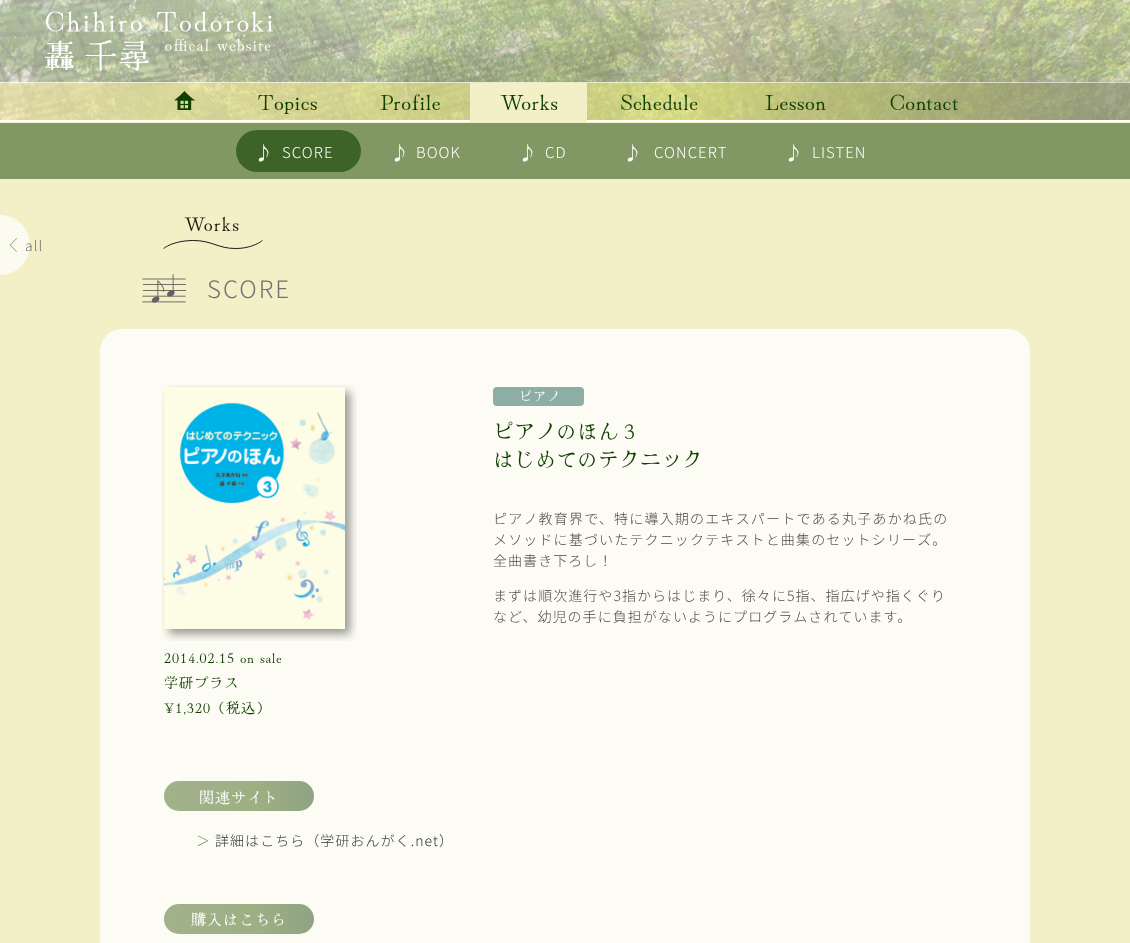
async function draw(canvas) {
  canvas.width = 1130
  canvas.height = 943
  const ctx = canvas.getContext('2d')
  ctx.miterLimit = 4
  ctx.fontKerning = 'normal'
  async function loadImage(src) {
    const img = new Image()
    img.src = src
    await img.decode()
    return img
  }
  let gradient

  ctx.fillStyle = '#f3f0c8'
  ctx.fillRect(0, 0, 1130, 943)
  ctx.drawImage(await loadImage('image0.png'), 0, 0, 1130, 120)
  ctx.drawImage(await loadImage('image1.png'), 45, 11, 228, 60)
  ctx.fillStyle = '#ffffff99'
  ctx.fillRect(0, 82, 1130, 1)
  ctx.fillStyle = '#fff'
  ctx.fillRect(0, 120, 1130, 2)
  ctx.drawImage(await loadImage('image2.png'), 174, 91, 21, 19)
  ctx.fillStyle = '#f3f0c8'
  ctx.fillRect(470, 83, 117, 39)
  ctx.letterSpacing = '1.05px'
  ctx.font = '22px Hina Mincho'
  ctx.fillStyle = '#103f00'
  ctx.fillText('Works', 500, 110)
  ctx.fillStyle = '#829864'
  ctx.fillRect(0, 123, 1130, 56)
  ctx.fillStyle = '#3e6328'
  ctx.beginPath()
  ctx.roundRect(236, 130, 125, 42, 21)
  ctx.fill()
  ctx.font = '100 19px Noto Sans JP'
  ctx.fillStyle = '#fff'
  ctx.fillText('♪', 254, 160)
  ctx.font = '100 15px Noto Sans JP'
  ctx.fillText('SCORE', 282, 158)
  ctx.font = '100 19px Noto Sans JP'
  ctx.fillText('♪', 390, 160)
  ctx.font = '100 15px Noto Sans JP'
  ctx.fillText('BOOK', 416, 158)
  ctx.font = '100 19px Noto Sans JP'
  ctx.fillText('♪', 518, 160)
  ctx.font = '100 15px Noto Sans JP'
  ctx.fillText('CD', 545, 158)
  ctx.font = '100 19px Noto Sans JP'
  ctx.fillText('♪', 623, 160)
  ctx.font = '100 15px Noto Sans JP'
  ctx.fillText('CONCERT', 654, 158)
  ctx.font = '100 19px Noto Sans JP'
  ctx.fillText('♪', 784, 160)
  ctx.font = '100 15px Noto Sans JP'
  ctx.fillText('LISTEN', 812, 158)
  ctx.font = '22px Hina Mincho'
  ctx.fillStyle = '#103f00'
  ctx.fillText('Topics', 258, 110)
  ctx.fillText('Profile', 380, 110)
  ctx.fillText('Schedule', 621, 110)
  ctx.fillText('Lesson', 765, 110)
  ctx.fillText('Contact', 890, 110)
  ctx.fillStyle = '#fcfbef'
  ctx.beginPath()
  ctx.roundRect(0, 215, 30, 60, [0, 30, 30, 0])
  ctx.fill()
  ctx.fillStyle = '#869d78'
  ctx.beginPath()
  ctx.moveTo(16.5, 252)
  ctx.lineTo(9.5, 245)
  ctx.lineTo(10.5, 245)
  ctx.lineTo(17, 251.5)
  ctx.closePath()
  ctx.moveTo(9.5, 245)
  ctx.lineTo(16.5, 238)
  ctx.lineTo(17, 238.5)
  ctx.lineTo(10.5, 245)
  ctx.closePath()
  ctx.fill()
  ctx.font = '100 14px Noto Sans JP'
  ctx.fillStyle = '#727171'
  ctx.fillText('all', 25, 251)
  ctx.beginPath()
  ctx.moveTo(163.5, 248.5)
  ctx.bezierCurveTo(163.5, 248.5, 173, 240.5, 193.5, 240.5)
  ctx.bezierCurveTo(212, 240.5, 218, 248.5, 235.5, 248.5)
  ctx.bezierCurveTo(253, 248.5, 262.5, 240.5, 262.5, 240.5)
  ctx.strokeStyle = '#000'
  ctx.lineWidth = 0.9
  ctx.stroke()
  ctx.letterSpacing = '1.5px'
  ctx.font = '20px Hina Mincho'
  ctx.fillStyle = '#231815'
  ctx.fillText('Works', 184, 231)
  ctx.drawImage(await loadImage('image3.png'), 142, 274, 44, 29)
  ctx.letterSpacing = '2px'
  ctx.font = '100 24px Noto Sans JP'
  ctx.fillStyle = '#727171'
  ctx.fillText('SCORE', 207, 298)
  ctx.fillStyle = '#fcfcf4'
  ctx.beginPath()
  ctx.roundRect(100, 329, 930, 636, 22)
  ctx.fill()
  ctx.fillStyle = '#8daea4'
  ctx.beginPath()
  ctx.roundRect(493, 387, 91, 19, 4)
  ctx.fill()
  ctx.letterSpacing = '1px'
  ctx.font = '13px Hina Mincho'
  ctx.fillStyle = '#fff'
  ctx.fillText('ピアノ', 519, 401)
  ctx.letterSpacing = '0px'
  ctx.font = '21px Hina Mincho'
  ctx.fillStyle = '#103f00'
  ctx.fillText('ピアノのほん３', 493, 439)
  ctx.fillText('はじめてのテクニック', 493, 467)
  ctx.letterSpacing = '1.2px'
  ctx.font = '100 14px Noto Sans JP'
  ctx.fillStyle = '#4c4948'
  ctx.fillText('ピアノ教育界で、特に導入期のエキスパートである丸子あかね氏の', 493, 524)
  ctx.letterSpacing = '1.15px'
  ctx.fillText('メソッドに基づいたテクニックテキストと曲集のセットシリーズ。', 493, 545)
  ctx.letterSpacing = '1.05px'
  ctx.fillText('全曲書き下ろし！', 493, 566)
  ctx.fillText('まずは順次進行や3指からはじまり、徐々に5指、指広げや指くぐり', 493, 601)
  ctx.fillText('など、幼児の手に負担がないようにプログラムされています。', 493, 622)
  ctx.drawImage(await loadImage('image4.png'), 162, 385, 195, 256)
  ctx.font = '14px Hina Mincho'
  ctx.fillStyle = '#103f00'
  ctx.fillText('2014.02.15 on sale', 164, 663)
  ctx.fillText('学研プラス', 164, 688)
  ctx.fillText('¥1,320（税込）', 164, 713)
  ctx.fillStyle = '#92a786'
  ctx.beginPath()
  ctx.roundRect(164, 781, 150, 30, 15)
  ctx.fill()
  gradient = ctx.createLinearGradient(164, 796, 314, 796)
  gradient.addColorStop(0.01, '#ffeeab24')
  gradient.addColorStop(0.62, '#dfe57024')
  gradient.addColorStop(0.99, '#888a7124')
  ctx.fillStyle = gradient
  ctx.beginPath()
  ctx.roundRect(164, 781, 150, 30, 15)
  ctx.fill()
  ctx.font = '15px Hina Mincho'
  ctx.fillStyle = '#fff'
  ctx.fillText('関連サイト', 199, 803)
  ctx.font = '100 14px Noto Sans JP'
  ctx.fillStyle = '#6e8b62'
  ctx.fillText('＞', 196, 846)
  ctx.fillStyle = '#333'
  ctx.fillText('詳細はこちら（学研おんがく.net）', 215, 846)
  ctx.fillStyle = '#92a786'
  ctx.beginPath()
  ctx.roundRect(164, 904, 150, 30, 15)
  ctx.fill()
  gradient = ctx.createLinearGradient(164, 919, 314, 919)
  gradient.addColorStop(0.01, '#ffeeab24')
  gradient.addColorStop(0.62, '#dfe57024')
  gradient.addColorStop(0.99, '#888a7124')
  ctx.fillStyle = gradient
  ctx.beginPath()
  ctx.roundRect(164, 904, 150, 30, 15)
  ctx.fill()
  ctx.font = '15px Hina Mincho'
  ctx.fillStyle = '#fff'
  ctx.fillText('購入はこちら', 191, 925)
}

draw(document.querySelector('canvas'))
